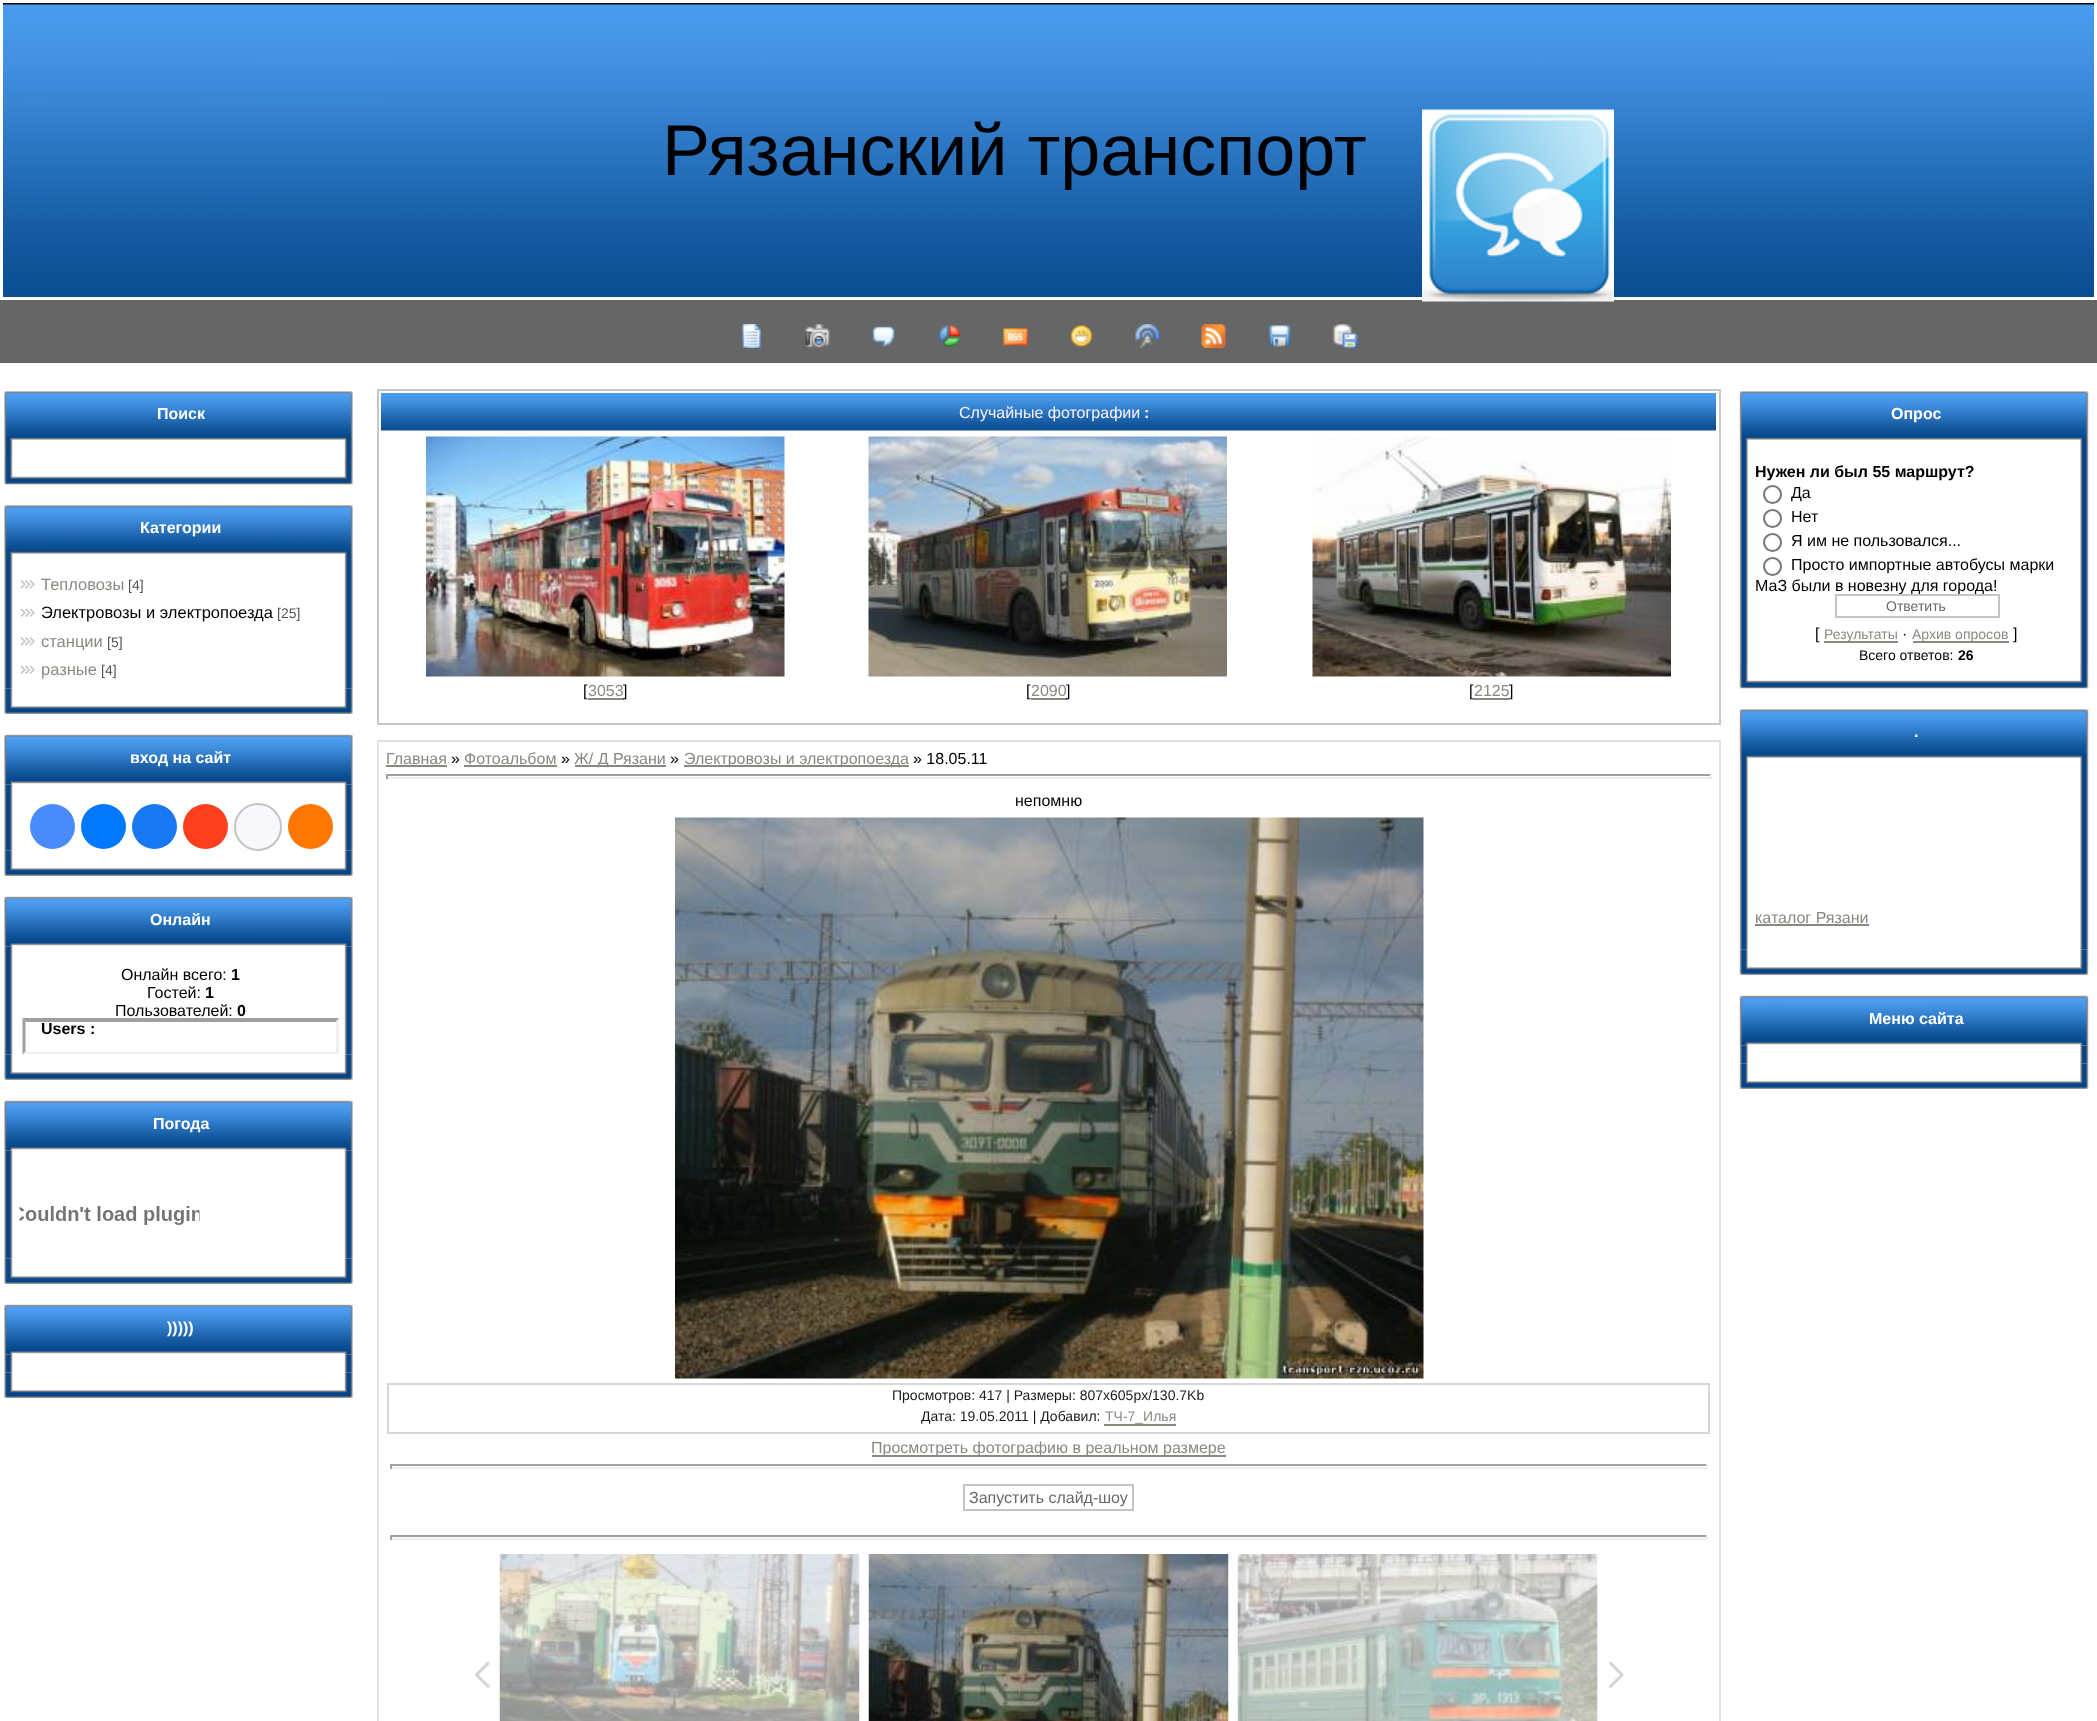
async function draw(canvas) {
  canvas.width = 2097
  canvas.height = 1721
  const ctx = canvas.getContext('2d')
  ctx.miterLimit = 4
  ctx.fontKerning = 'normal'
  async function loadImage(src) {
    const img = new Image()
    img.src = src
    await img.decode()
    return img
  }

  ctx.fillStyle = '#fff'
  ctx.fillRect(0, 0, 2097, 1721)
  ctx.drawImage(await loadImage('image0.png'), 3, 3, 2091, 294)
  ctx.font = '72px Liberation Sans'
  ctx.fillStyle = '#000'
  ctx.fillText('Рязанский транспорт', 662, 175)
  ctx.fillStyle = '#666'
  ctx.fillRect(0, 300, 2097, 63)
  ctx.drawImage(await loadImage('image1.png'), 1422, 109, 192, 193)
  ctx.drawImage(await loadImage('image2.png'), 742, 324, 19, 24)
  ctx.drawImage(await loadImage('image3.png'), 805, 324, 25, 24)
  ctx.drawImage(await loadImage('image4.png'), 872, 326, 23, 21)
  ctx.drawImage(await loadImage('image5.png'), 938, 325, 23, 22)
  ctx.drawImage(await loadImage('image6.png'), 1003, 328, 25, 18)
  ctx.drawImage(await loadImage('image7.png'), 1070, 325, 23, 22)
  ctx.drawImage(await loadImage('image8.png'), 1135, 324, 25, 24)
  ctx.drawImage(await loadImage('image9.png'), 1201, 324, 25, 24)
  ctx.drawImage(await loadImage('image10.png'), 1268, 325, 23, 22)
  ctx.drawImage(await loadImage('image11.png'), 1333, 324, 25, 24)
  ctx.drawImage(await loadImage('image12.png'), 4, 391, 349, 50)
  ctx.font = 'bold 16px Liberation Sans'
  ctx.fillStyle = '#fff'
  ctx.fillText('Поиск', 157, 419)
  ctx.drawImage(await loadImage('image13.png'), 4, 441, 349, 18)
  ctx.drawImage(await loadImage('image14.png'), 4, 459, 349, 26)
  ctx.drawImage(await loadImage('image15.png'), 4, 505, 349, 50)
  ctx.fillText('Категории', 140, 533)
  ctx.drawImage(await loadImage('image16.png'), 4, 555, 349, 134)
  ctx.drawImage(await loadImage('image17.png'), 21, 580, 14, 9)
  ctx.font = '16.5px Liberation Sans'
  ctx.fillStyle = '#8b8881'
  ctx.fillText('Тепловозы', 41, 590)
  ctx.font = '14px Liberation Sans'
  ctx.fillStyle = '#555'
  ctx.fillText('[4]', 128, 590)
  ctx.drawImage(await loadImage('image18.png'), 21, 608, 14, 9)
  ctx.font = '16.5px Liberation Sans'
  ctx.fillStyle = '#000'
  ctx.fillText('Электровозы и электропоезда', 41, 618)
  ctx.font = '14px Liberation Sans'
  ctx.fillStyle = '#555'
  ctx.fillText('[25]', 277, 618)
  ctx.drawImage(await loadImage('image17.png'), 21, 637, 14, 9)
  ctx.font = '16.5px Liberation Sans'
  ctx.fillStyle = '#8b8881'
  ctx.fillText('станции', 41, 647)
  ctx.font = '14px Liberation Sans'
  ctx.fillStyle = '#555'
  ctx.fillText('[5]', 107, 647)
  ctx.drawImage(await loadImage('image18.png'), 21, 665, 14, 9)
  ctx.font = '16.5px Liberation Sans'
  ctx.fillStyle = '#8b8881'
  ctx.fillText('разные', 41, 675)
  ctx.font = '14px Liberation Sans'
  ctx.fillStyle = '#555'
  ctx.fillText('[4]', 101, 675)
  ctx.drawImage(await loadImage('image19.png'), 4, 688, 349, 26)
  ctx.drawImage(await loadImage('image20.png'), 4, 734, 349, 51)
  ctx.font = 'bold 16px Liberation Sans'
  ctx.fillStyle = '#fff'
  ctx.fillText('вход на сайт', 130, 763)
  ctx.drawImage(await loadImage('image21.png'), 4, 784, 349, 67)
  ctx.fillStyle = '#498bfa'
  ctx.beginPath()
  ctx.arc(52.5, 826.5, 22.5, 0, 2 * Math.PI)
  ctx.fill()
  ctx.fillStyle = '#07f'
  ctx.beginPath()
  ctx.arc(103.5, 826.5, 22.5, 0, 2 * Math.PI)
  ctx.fill()
  ctx.fillStyle = '#1877f2'
  ctx.beginPath()
  ctx.arc(154.5, 826.5, 22.5, 0, 2 * Math.PI)
  ctx.fill()
  ctx.fillStyle = '#fc3f1d'
  ctx.beginPath()
  ctx.arc(205.5, 826.5, 22.5, 0, 2 * Math.PI)
  ctx.fill()
  ctx.drawImage(await loadImage('image19.png'), 4, 850, 349, 26)
  ctx.fillStyle = '#f8f8fc'
  ctx.beginPath()
  ctx.arc(258, 827, 23, 0, 2 * Math.PI)
  ctx.fill()
  ctx.strokeStyle = '#c4c4c4'
  ctx.lineWidth = 2
  ctx.stroke()
  ctx.fillStyle = '#f70'
  ctx.beginPath()
  ctx.arc(310.5, 826.5, 22.5, 0, 2 * Math.PI)
  ctx.fill()
  ctx.drawImage(await loadImage('image22.png'), 4, 896, 349, 51)
  ctx.fillStyle = '#fff'
  ctx.fillText('Онлайн', 150, 925)
  ctx.drawImage(await loadImage('image23.png'), 4, 946, 349, 109)
  ctx.font = '16px Liberation Sans'
  ctx.fillStyle = '#000'
  ctx.fillText('Онлайн всего:', 121, 980)
  ctx.font = 'bold 16px Liberation Sans'
  ctx.fillText('1', 231, 980)
  ctx.font = '16px Liberation Sans'
  ctx.fillText('Гостей:', 147, 998)
  ctx.font = 'bold 16px Liberation Sans'
  ctx.fillText('1', 205, 998)
  ctx.font = '16px Liberation Sans'
  ctx.fillText('Пользователей:', 115, 1016)
  ctx.font = 'bold 16px Liberation Sans'
  ctx.fillText('0', 237, 1016)
  ctx.fillStyle = '#9f9f9f'
  ctx.beginPath()
  ctx.moveTo(22, 1018)
  ctx.lineTo(339, 1018)
  ctx.lineTo(336, 1022)
  ctx.lineTo(26, 1022)
  ctx.closePath()
  ctx.fill()
  ctx.fillStyle = '#efefef'
  ctx.beginPath()
  ctx.moveTo(339, 1018.5)
  ctx.lineTo(339, 1054.5)
  ctx.lineTo(336, 1051.5)
  ctx.lineTo(336, 1021.5)
  ctx.closePath()
  ctx.fill()
  ctx.beginPath()
  ctx.moveTo(339, 1054)
  ctx.lineTo(22, 1054)
  ctx.lineTo(26, 1052)
  ctx.lineTo(336, 1052)
  ctx.closePath()
  ctx.fill()
  ctx.fillStyle = '#9f9f9f'
  ctx.beginPath()
  ctx.moveTo(22.5, 1054.5)
  ctx.lineTo(22.5, 1018.5)
  ctx.lineTo(25.5, 1021.5)
  ctx.lineTo(25.5, 1051.5)
  ctx.closePath()
  ctx.fill()
  ctx.fillStyle = '#000'
  ctx.fillText('Users :', 41, 1034)
  ctx.drawImage(await loadImage('image24.png'), 4, 1054, 349, 26)
  ctx.drawImage(await loadImage('image25.png'), 4, 1100, 349, 51)
  ctx.fillStyle = '#fff'
  ctx.fillText('Погода', 153, 1129)
  ctx.drawImage(await loadImage('image23.png'), 4, 1150, 349, 109)
  ctx.drawImage(await loadImage('image26.png'), 19, 1206, 181, 19)
  ctx.drawImage(await loadImage('image27.png'), 4, 1258, 349, 26)
  ctx.drawImage(await loadImage('image28.png'), 4, 1304, 349, 51)
  ctx.fillText(')))))', 167, 1333)
  ctx.drawImage(await loadImage('image29.png'), 4, 1354, 349, 19)
  ctx.drawImage(await loadImage('image30.png'), 4, 1372, 349, 26)
  ctx.strokeStyle = '#c6c6c6'
  ctx.strokeRect(378, 390, 1342, 334)
  ctx.drawImage(await loadImage('image31.png'), 381, 393, 1335, 38)
  ctx.font = '16px Liberation Sans'
  ctx.fillStyle = '#fff4ff'
  ctx.fillText('Случайные фотографии', 959, 418)
  ctx.font = 'bold 16px Liberation Sans'
  ctx.fillText(':', 1144, 418)
  ctx.drawImage(await loadImage('image32.png'), 426, 436, 359, 241)
  ctx.font = '16px Liberation Sans'
  ctx.fillStyle = '#000'
  ctx.fillText('[', 583, 696)
  ctx.fillStyle = '#8b8881'
  ctx.fillText('3053', 588, 696)
  ctx.fillRect(588, 698, 36, 2)
  ctx.fillStyle = '#000'
  ctx.fillText(']', 623, 696)
  ctx.drawImage(await loadImage('image33.png'), 868, 436, 359, 241)
  ctx.fillText('[', 1026, 696)
  ctx.fillStyle = '#8b8881'
  ctx.fillText('2090', 1031, 696)
  ctx.fillRect(1031, 698, 36, 2)
  ctx.fillStyle = '#000'
  ctx.fillText(']', 1066, 696)
  ctx.drawImage(await loadImage('image34.png'), 1312, 436, 359, 241)
  ctx.fillText('[', 1469, 696)
  ctx.fillStyle = '#8b8881'
  ctx.fillText('2125', 1474, 696)
  ctx.fillRect(1473, 698, 36, 2)
  ctx.fillStyle = '#000'
  ctx.fillText(']', 1509, 696)
  ctx.strokeStyle = '#e1e1e1'
  ctx.strokeRect(378, 741, 1342, 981)
  ctx.fillStyle = '#8b8881'
  ctx.fillText('Главная', 386, 764)
  ctx.fillRect(386, 765, 61, 2)
  ctx.fillStyle = '#000'
  ctx.fillText('»', 451, 764)
  ctx.fillStyle = '#8b8881'
  ctx.fillText('Фотоальбом', 464, 764)
  ctx.fillRect(464, 765, 93, 2)
  ctx.fillStyle = '#000'
  ctx.fillText('»', 561, 764)
  ctx.fillStyle = '#8b8881'
  ctx.fillRect(575, 765, 91, 2)
  ctx.fillText('Ж/ Д Рязани', 574, 764)
  ctx.fillStyle = '#000'
  ctx.fillText('»', 670, 764)
  ctx.fillStyle = '#8b8881'
  ctx.fillRect(684, 765, 225, 2)
  ctx.fillText('Электровозы и электропоезда', 684, 764)
  ctx.fillStyle = '#000'
  ctx.fillText('» 18.05.11', 913, 764)
  ctx.fillStyle = '#9f9f9f'
  ctx.fillRect(386, 774, 1326, 2)
  ctx.fillStyle = '#eee'
  ctx.fillRect(1710, 774, 2, 5)
  ctx.fillRect(386, 777, 1326, 2)
  ctx.fillStyle = '#9f9f9f'
  ctx.fillRect(386, 774, 2, 5)
  ctx.fillStyle = '#000'
  ctx.fillText('непомню', 1015, 806)
  ctx.drawImage(await loadImage('image35.png'), 675, 817, 749, 562)
  ctx.strokeStyle = '#d7d7d7'
  ctx.strokeRect(388, 1384, 1321, 49)
  ctx.font = '14px Liberation Sans'
  ctx.fillStyle = '#1a1a1a'
  ctx.fillText('Просмотров: 417 | Размеры: 807x605px/130.7Kb', 892, 1400)
  ctx.fillText('Дата: 19.05.2011 | Добавил:', 921, 1421)
  ctx.fillStyle = '#8b8881'
  ctx.fillText('ТЧ-7_Илья', 1105, 1421)
  ctx.fillRect(1104, 1424, 72, 2)
  ctx.fillRect(872, 1455, 354, 2)
  ctx.font = '16px Liberation Sans'
  ctx.fillText('Просмотреть фотографию в реальном размере', 871, 1453)
  ctx.fillStyle = '#9f9f9f'
  ctx.fillRect(390, 1464, 1317, 2)
  ctx.fillStyle = '#eee'
  ctx.fillRect(1706, 1464, 2, 5)
  ctx.fillRect(390, 1467, 1317, 2)
  ctx.fillStyle = '#9f9f9f'
  ctx.fillRect(390, 1464, 2, 5)
  ctx.strokeStyle = '#c4c4c4'
  ctx.strokeRect(964, 1485, 169, 25)
  ctx.fillStyle = '#686868'
  ctx.fillText('Запустить слайд-шоу', 969, 1503)
  ctx.fillStyle = '#9f9f9f'
  ctx.fillRect(390, 1535, 1317, 2)
  ctx.fillStyle = '#eee'
  ctx.fillRect(1706, 1535, 2, 5)
  ctx.fillRect(390, 1538, 1317, 2)
  ctx.fillStyle = '#9f9f9f'
  ctx.fillRect(390, 1535, 2, 5)
  ctx.drawImage(await loadImage('image36.png'), 474, 1661, 17, 27)
  ctx.drawImage(await loadImage('image37.png'), 499, 1554, 361, 167)
  ctx.drawImage(await loadImage('image38.png'), 868, 1554, 361, 167)
  ctx.drawImage(await loadImage('image39.png'), 1237, 1554, 361, 167)
  ctx.drawImage(await loadImage('image40.png'), 1608, 1661, 17, 27)
  ctx.drawImage(await loadImage('image41.png'), 1739, 391, 350, 50)
  ctx.font = 'bold 16px Liberation Sans'
  ctx.fillStyle = '#fff'
  ctx.fillText('Опрос', 1891, 419)
  ctx.drawImage(await loadImage('image42.png'), 1739, 441, 350, 222)
  ctx.fillStyle = '#000'
  ctx.fillText('Нужен ли был 55 маршрут?', 1755, 477)
  ctx.beginPath()
  ctx.arc(1772.5, 494.5, 8.5, 0, 2 * Math.PI)
  ctx.strokeStyle = '#767676'
  ctx.stroke()
  ctx.font = '16px Liberation Sans'
  ctx.fillText('Да', 1791, 498)
  ctx.beginPath()
  ctx.arc(1772.5, 518.5, 8.5, 0, 2 * Math.PI)
  ctx.stroke()
  ctx.fillText('Нет', 1791, 522)
  ctx.beginPath()
  ctx.arc(1772.5, 542.5, 8.5, 0, 2 * Math.PI)
  ctx.stroke()
  ctx.fillText('Я им не пользовался...', 1791, 546)
  ctx.beginPath()
  ctx.arc(1772.5, 566.5, 8.5, 0, 2 * Math.PI)
  ctx.stroke()
  ctx.fillText('Просто импортные автобусы марки', 1791, 570)
  ctx.fillText('МаЗ были в новезну для города!', 1755, 591)
  ctx.strokeStyle = '#c4c4c4'
  ctx.strokeRect(1836, 595, 163, 22)
  ctx.font = '14px Liberation Sans'
  ctx.fillStyle = '#686868'
  ctx.fillText('Ответить', 1886, 611)
  ctx.font = '16px Liberation Sans'
  ctx.fillStyle = '#000'
  ctx.fillText('[', 1815, 639)
  ctx.fillStyle = '#8b8881'
  ctx.fillRect(1824, 641, 74, 2)
  ctx.font = '14px Liberation Sans'
  ctx.fillText('Результаты', 1824, 639)
  ctx.font = '16px Liberation Sans'
  ctx.fillStyle = '#000'
  ctx.fillText('·', 1902, 639)
  ctx.fillStyle = '#8b8881'
  ctx.fillRect(1913, 641, 96, 2)
  ctx.font = '14px Liberation Sans'
  ctx.fillText('Архив опросов', 1912, 639)
  ctx.font = '16px Liberation Sans'
  ctx.fillStyle = '#000'
  ctx.fillText(']', 2013, 639)
  ctx.font = '14px Liberation Sans'
  ctx.fillText('Всего ответов:', 1859, 660)
  ctx.font = 'bold 14px Liberation Sans'
  ctx.fillText('26', 1958, 660)
  ctx.drawImage(await loadImage('image43.png'), 1739, 663, 350, 26)
  ctx.drawImage(await loadImage('image44.png'), 1739, 709, 350, 50)
  ctx.font = 'bold 16px Liberation Sans'
  ctx.fillStyle = '#fff'
  ctx.fillText('.', 1914, 737)
  ctx.drawImage(await loadImage('image45.png'), 1739, 759, 350, 191)
  ctx.font = '16px Liberation Sans'
  ctx.fillStyle = '#8b8881'
  ctx.fillText('каталог Рязани', 1755, 923)
  ctx.fillRect(1755, 924, 114, 2)
  ctx.drawImage(await loadImage('image46.png'), 1739, 949, 350, 26)
  ctx.drawImage(await loadImage('image47.png'), 1739, 995, 350, 51)
  ctx.font = 'bold 16px Liberation Sans'
  ctx.fillStyle = '#fff'
  ctx.fillText('Меню сайта', 1869, 1024)
  ctx.drawImage(await loadImage('image48.png'), 1739, 1045, 350, 19)
  ctx.drawImage(await loadImage('image49.png'), 1739, 1063, 350, 26)
}

draw(document.querySelector('canvas'))
